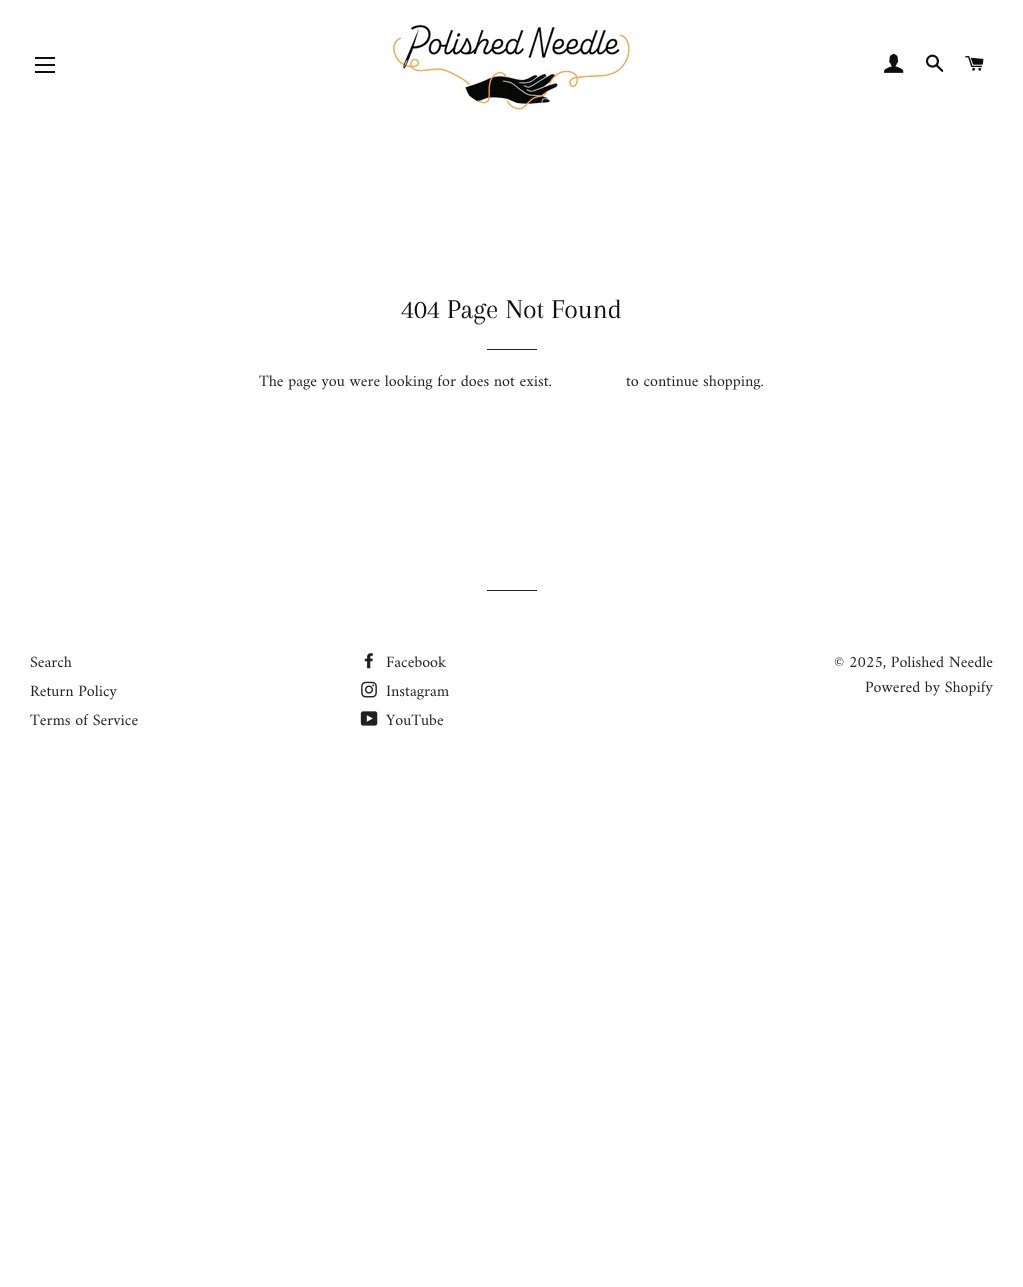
async function draw(canvas) {
  canvas.width = 1023
  canvas.height = 1287
  const ctx = canvas.getContext('2d')
  ctx.miterLimit = 4
  ctx.fontKerning = 'none'
  async function loadImage(src) {
    const img = new Image()
    img.src = src
    await img.decode()
    return img
  }

  ctx.fillStyle = '#fff'
  ctx.fillRect(0, 0, 1023, 1287)
  ctx.fillStyle = '#0e0e0e'
  ctx.fillRect(35, 57, 20, 2)
  ctx.fillRect(35, 64, 20, 2)
  ctx.fillRect(35, 71, 20, 2)
  ctx.drawImage(await loadImage('image0.png'), 391, 23, 241, 89)
  ctx.drawImage(await loadImage('image1.png'), 884, 53, 20, 20)
  ctx.drawImage(await loadImage('image2.png'), 926, 54, 18, 18)
  ctx.drawImage(await loadImage('image3.png'), 965, 56, 19, 15)
  ctx.font = '28px Arapey'
  ctx.fillText('404 Page Not Found', 401, 318)
  ctx.fillStyle = '#1f2021'
  ctx.fillRect(487, 349, 50, 1)
  ctx.font = '16px Amiri'
  ctx.fillText('The page you were looking for does not exist.', 259, 386)
  ctx.fillText('to continue shopping.', 626, 386)
  ctx.fillRect(487, 590, 50, 1)
  ctx.fillText('Search', 30, 667)
  ctx.fillText('Return Policy', 30, 696)
  ctx.fillText('Terms of Service', 30, 725)
  ctx.drawImage(await loadImage('image4.png'), 364, 653, 9, 16)
  ctx.fillText('Facebook', 386, 667)
  ctx.drawImage(await loadImage('image5.png'), 361, 681, 16, 17)
  ctx.fillText('Instagram', 386, 696)
  ctx.drawImage(await loadImage('image6.png'), 360, 711, 18, 15)
  ctx.fillText('YouTube', 386, 725)
  ctx.fillText('© 2025, Polished Needle', 834, 667)
  ctx.fillText('Powered by Shopify', 865, 692)
}

draw(document.querySelector('canvas'))
